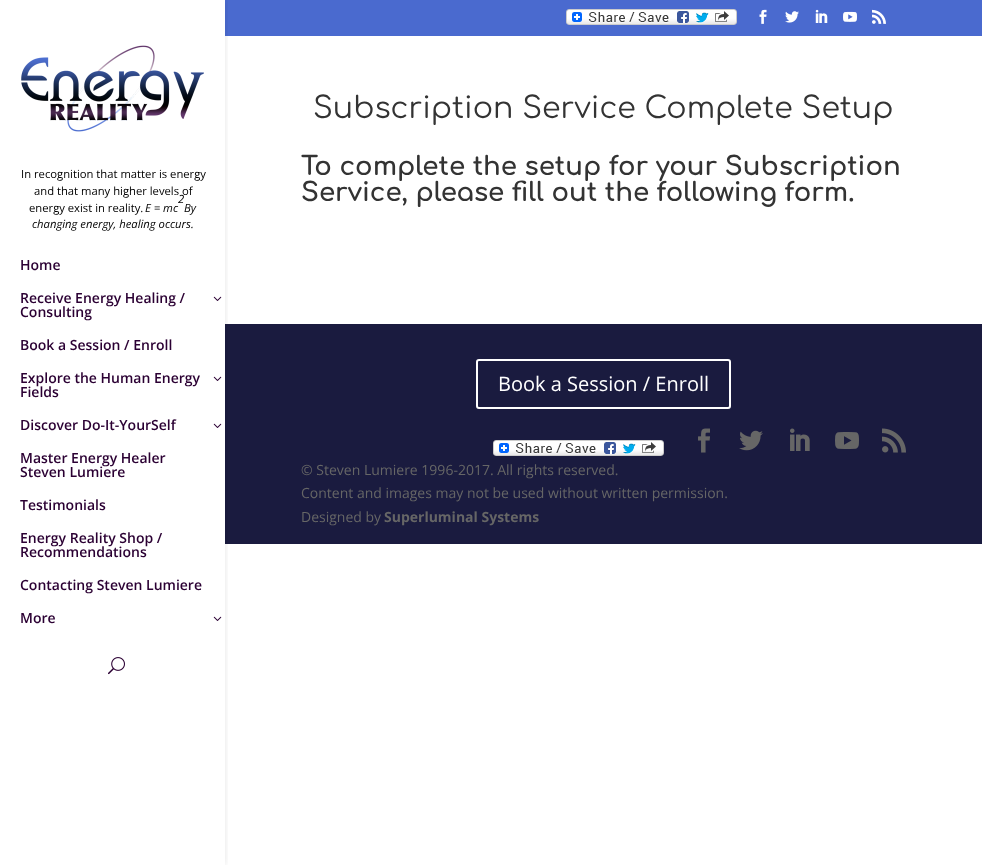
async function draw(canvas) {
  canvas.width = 982
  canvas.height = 865
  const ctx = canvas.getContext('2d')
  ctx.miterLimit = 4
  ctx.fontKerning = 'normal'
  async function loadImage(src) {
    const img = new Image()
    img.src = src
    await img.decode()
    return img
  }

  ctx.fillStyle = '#fff'
  ctx.fillRect(0, 0, 982, 865)
  ctx.fillStyle = '#4a6acf'
  ctx.fillRect(225, 0, 757, 36)
  ctx.drawImage(await loadImage('image0.png'), 566, 9, 171, 16)
  ctx.drawImage(await loadImage('image1.png'), 759, 9, 8, 15)
  ctx.drawImage(await loadImage('image2.png'), 785, 11, 14, 12)
  ctx.drawImage(await loadImage('image3.png'), 815, 9, 13, 14)
  ctx.drawImage(await loadImage('image4.png'), 843, 11, 14, 11)
  ctx.drawImage(await loadImage('image5.png'), 872, 9, 14, 15)
  ctx.fillStyle = '#1a1b3f'
  ctx.fillRect(225, 324, 757, 220)
  ctx.save()
  ctx.beginPath()
  ctx.rect(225, 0, 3, 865)
  ctx.clip()
  ctx.fillStyle = '#0000001a'
  ctx.filter = 'blur(3.5px)'
  ctx.beginPath()
  ctx.rect(0, 0, 225, 865)
  ctx.fill()
  ctx.filter = 'none'
  ctx.restore()
  ctx.drawImage(await loadImage('image6.png'), 21, 45, 183, 87)
  ctx.font = '11.25px Open Sans'
  ctx.fillStyle = '#000'
  ctx.fillText('In recognition that matter is energy', 21, 178)
  ctx.fillText('and that many higher levels of', 34, 195)
  ctx.font = 'italic 11.25px Open Sans'
  ctx.fillText('2', 178, 203)
  ctx.font = '11.25px Open Sans'
  ctx.fillText('energy exist in reality.', 29, 212)
  ctx.font = 'italic 11.25px Open Sans'
  ctx.fillText('E = mc', 145, 212)
  ctx.fillText('By', 184, 212)
  ctx.fillText('changing energy, healing occurs.', 32, 228)
  ctx.font = '600 14px Open Sans'
  ctx.fillStyle = '#2b0033'
  ctx.fillText('Home', 20, 270)
  ctx.fillText('Receive Energy Healing /', 20, 303)
  ctx.drawImage(await loadImage('image7.png'), 213, 296, 9, 5)
  ctx.fillText('Consulting', 20, 317)
  ctx.fillText('Book a Session / Enroll', 20, 350)
  ctx.fillText('Explore the Human Energy', 20, 383)
  ctx.drawImage(await loadImage('image7.png'), 213, 376, 9, 5)
  ctx.fillText('Fields', 20, 397)
  ctx.fillText('Discover Do-It-YourSelf', 20, 430)
  ctx.drawImage(await loadImage('image7.png'), 213, 423, 9, 5)
  ctx.fillText('Master Energy Healer', 20, 463)
  ctx.fillText('Steven Lumiere', 20, 477)
  ctx.fillText('Testimonials', 20, 510)
  ctx.fillText('Energy Reality Shop /', 20, 543)
  ctx.fillText('Recommendations', 20, 557)
  ctx.fillText('Contacting Steven Lumiere', 20, 590)
  ctx.fillText('More', 20, 623)
  ctx.drawImage(await loadImage('image7.png'), 213, 616, 9, 5)
  ctx.drawImage(await loadImage('image8.png'), 108, 657, 17, 18)
  ctx.font = '30px Comfortaa'
  ctx.fillStyle = '#333'
  ctx.fillText('Subscription Service Complete Setup', 313, 118)
  ctx.font = 'bold 26px Comfortaa'
  ctx.fillText('To complete the setup for your Subscription', 301, 175)
  ctx.fillText('Service, please fill out the following form.', 301, 201)
  ctx.beginPath()
  ctx.roundRect(477, 360, 253, 48, 2)
  ctx.strokeStyle = '#fff'
  ctx.lineWidth = 2
  ctx.stroke()
  ctx.font = '20px Open Sans'
  ctx.fillStyle = '#fff'
  ctx.fillText('Book a Session / Enroll', 498, 391)
  ctx.drawImage(await loadImage('image9.png'), 493, 440, 171, 16)
  ctx.drawImage(await loadImage('image10.png'), 698, 428, 12, 25)
  ctx.drawImage(await loadImage('image11.png'), 739, 430, 24, 21)
  ctx.drawImage(await loadImage('image12.png'), 790, 428, 20, 23)
  ctx.drawImage(await loadImage('image13.png'), 835, 432, 24, 17)
  ctx.drawImage(await loadImage('image14.png'), 882, 428, 24, 25)
  ctx.font = '14px Open Sans'
  ctx.fillStyle = '#666'
  ctx.fillText('© Steven Lumiere 1996-2017. All rights reserved.', 301, 475)
  ctx.fillText('Content and images may not be used without written permission.', 301, 498)
  ctx.fillText('Designed by', 301, 522)
  ctx.font = 'bold 14px Open Sans'
  ctx.fillText('Superluminal Systems', 384, 522)
}

draw(document.querySelector('canvas'))
